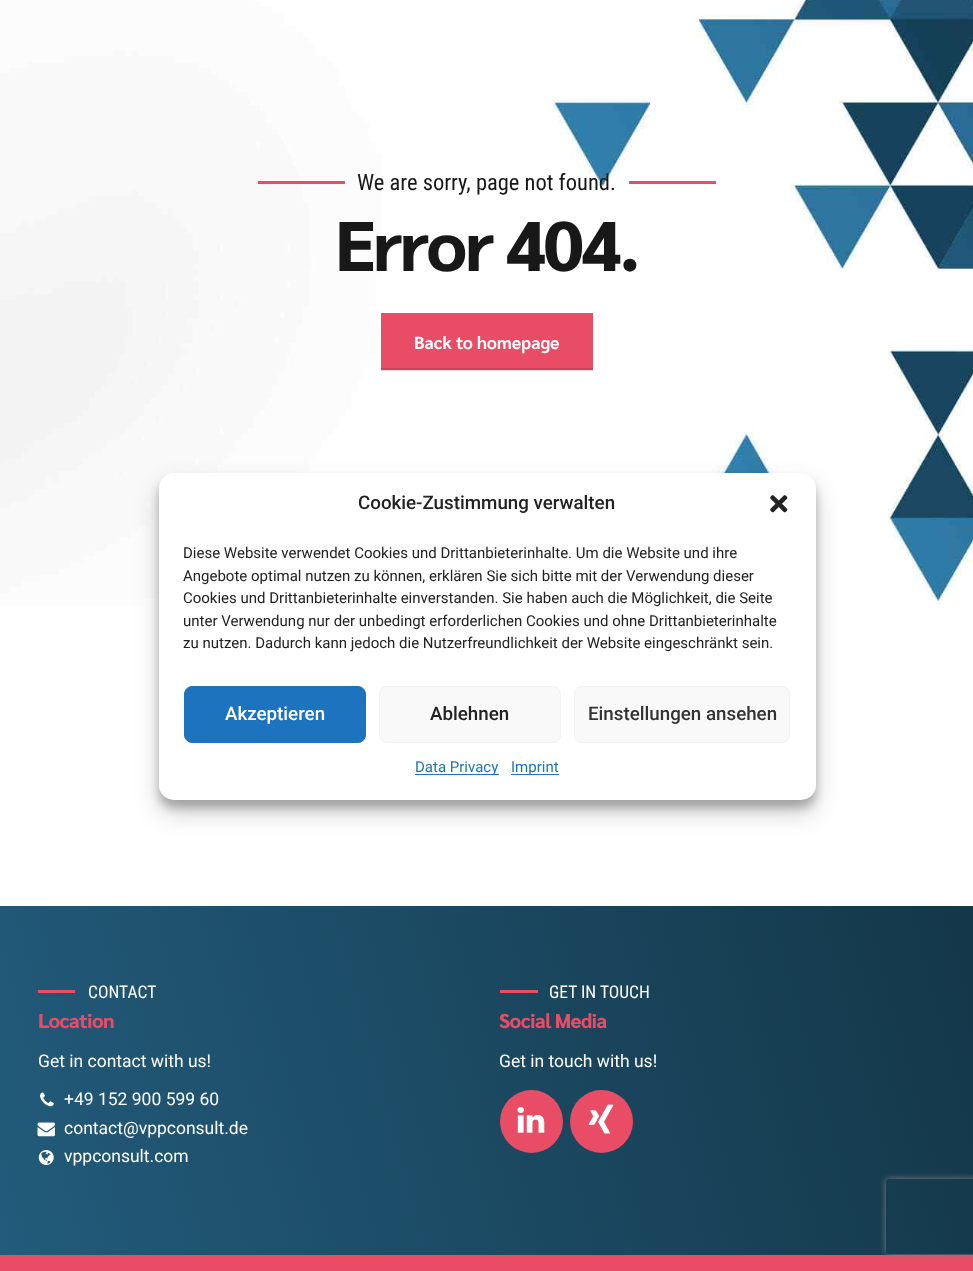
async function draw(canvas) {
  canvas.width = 973
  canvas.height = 1271
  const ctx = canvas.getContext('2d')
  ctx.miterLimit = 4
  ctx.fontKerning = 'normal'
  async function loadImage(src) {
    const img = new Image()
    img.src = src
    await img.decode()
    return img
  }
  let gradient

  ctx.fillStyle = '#fff'
  ctx.fillRect(0, 0, 973, 1271)
  ctx.drawImage(await loadImage('image0.png'), 0, 0, 973, 605)
  ctx.fillStyle = '#e94d65'
  ctx.fillRect(258, 181, 87, 3)
  ctx.font = '22.5px Roboto Condensed'
  ctx.fillStyle = '#181818'
  ctx.fillText('We are sorry, page not found.', 357, 190)
  ctx.fillStyle = '#e94d65'
  ctx.fillRect(629, 181, 87, 3)
  ctx.letterSpacing = '-2.1px'
  ctx.font = '800 70px Sarabun'
  ctx.fillStyle = '#181818'
  ctx.fillText('Error 404.', 335, 271)
  ctx.fillStyle = '#e94d65'
  ctx.fillRect(381, 313, 212, 57)
  ctx.fillStyle = '#18181826'
  ctx.fillRect(381, 368, 212, 3)
  ctx.letterSpacing = '0px'
  ctx.font = 'bold 17.5px Sarabun'
  ctx.fillStyle = '#fff'
  ctx.fillText('Back to homepage', 414, 349)
  gradient = ctx.createLinearGradient(-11, 1214, 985, 947)
  gradient.addColorStop(0, '#225b7b')
  gradient.addColorStop(1, '#143749')
  ctx.fillStyle = gradient
  ctx.fillRect(0, 906, 973, 349)
  ctx.fillStyle = '#e94d65'
  ctx.fillRect(38, 990, 37, 3)
  ctx.font = '17.5px Roboto Condensed'
  ctx.fillStyle = '#fff'
  ctx.fillText('CONTACT', 88, 998)
  ctx.letterSpacing = '-0.6px'
  ctx.font = '800 20px Sarabun'
  ctx.fillStyle = '#e94d65'
  ctx.fillText('Location', 38, 1028)
  ctx.letterSpacing = '0px'
  ctx.font = '17.5px Roboto'
  ctx.fillStyle = '#fff'
  ctx.fillText('Get in contact with us!', 38, 1067)
  ctx.drawImage(await loadImage('image1.png'), 40, 1092, 14, 15)
  ctx.fillText('+49 152 900 599 60', 64, 1105)
  ctx.drawImage(await loadImage('image2.png'), 37, 1122, 18, 15)
  ctx.fillText('contact@vppconsult.de', 64, 1134)
  ctx.drawImage(await loadImage('image3.png'), 38, 1150, 16, 15)
  ctx.fillText('vppconsult.com', 64, 1162)
  ctx.fillStyle = '#e94d65'
  ctx.fillRect(500, 990, 38, 3)
  ctx.font = '17.5px Roboto Condensed'
  ctx.fillStyle = '#fff'
  ctx.fillText('GET IN TOUCH', 549, 998)
  ctx.letterSpacing = '-0.6px'
  ctx.font = '800 20px Sarabun'
  ctx.fillStyle = '#e94d65'
  ctx.fillText('Social Media', 499, 1028)
  ctx.letterSpacing = '0px'
  ctx.font = '17.5px Roboto'
  ctx.fillStyle = '#fff'
  ctx.fillText('Get in touch with us!', 499, 1067)
  ctx.fillStyle = '#e94d65'
  ctx.beginPath()
  ctx.arc(531.5, 1121.5, 31.5, 0, 2 * Math.PI)
  ctx.fill()
  ctx.drawImage(await loadImage('image4.png'), 517, 1107, 28, 26)
  ctx.beginPath()
  ctx.arc(601.5, 1121.5, 31.5, 0, 2 * Math.PI)
  ctx.fill()
  ctx.drawImage(await loadImage('image5.png'), 588, 1104, 26, 30)
  ctx.fillRect(0, 1255, 973, 16)
  ctx.fillStyle = '#0000003b'
  ctx.filter = 'blur(4px)'
  ctx.beginPath()
  ctx.roundRect(159, 480, 657, 328, 15)
  ctx.fill()
  ctx.filter = 'none'
  ctx.fillStyle = '#00000030'
  ctx.filter = 'blur(12.5px)'
  ctx.beginPath()
  ctx.roundRect(159, 485, 657, 328, 15)
  ctx.fill()
  ctx.filter = 'none'
  ctx.fillStyle = '#fff'
  ctx.beginPath()
  ctx.roundRect(159, 473, 657, 327, 15)
  ctx.fill()
  ctx.font = '500 18.75px Roboto'
  ctx.fillStyle = '#222'
  ctx.fillText('Cookie-Zustimmung verwalten', 358, 509)
  ctx.drawImage(await loadImage('image6.png'), 770, 495, 18, 18)
  ctx.font = '15px Roboto'
  ctx.fillText('Diese Website verwendet Cookies und Drittanbieterinhalte. Um die Website und ihre', 183, 558)
  ctx.fillText('Angebote optimal nutzen zu können, erklären Sie sich bitte mit der Verwendung dieser', 183, 581)
  ctx.fillText('Cookies und Drittanbieterinhalte einverstanden. Sie haben auch die Möglichkeit, die Seite', 183, 603)
  ctx.fillText('unter Verwendung nur der unbedingt erforderlichen Cookies und ohne Drittanbieterinhalte', 183, 626)
  ctx.fillText('zu nutzen. Dadurch kann jedoch die Nutzerfreundlichkeit der Website eingeschränkt sein.', 183, 648)
  ctx.fillStyle = '#1e73be'
  ctx.beginPath()
  ctx.roundRect(184.5, 686.5, 181, 56, 7.5)
  ctx.fill()
  ctx.strokeStyle = '#1e73be'
  ctx.stroke()
  ctx.font = '500 18.75px Roboto'
  ctx.fillStyle = '#fff'
  ctx.fillText('Akzeptieren', 225, 720)
  ctx.fillStyle = '#f9f9f9'
  ctx.beginPath()
  ctx.roundRect(379.5, 686.5, 181, 56, 7.5)
  ctx.fill()
  ctx.strokeStyle = '#f2f2f2'
  ctx.stroke()
  ctx.fillStyle = '#222'
  ctx.fillText('Ablehnen', 430, 720)
  ctx.fillStyle = '#f9f9f9'
  ctx.beginPath()
  ctx.roundRect(574.5, 686.5, 215, 56, 7.5)
  ctx.fill()
  ctx.stroke()
  ctx.fillStyle = '#333'
  ctx.fillText('Einstellungen ansehen', 588, 720)
  ctx.fillStyle = '#1e73be'
  ctx.fillRect(415, 774, 84, 1)
  ctx.font = '15px Roboto'
  ctx.fillText('Data Privacy', 415, 772)
  ctx.fillRect(511, 774, 48, 1)
  ctx.fillText('Imprint', 511, 772)
  ctx.save()
  ctx.beginPath()
  ctx.moveTo(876, 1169)
  ctx.lineTo(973, 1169)
  ctx.lineTo(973, 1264)
  ctx.lineTo(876, 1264)
  ctx.closePath()
  ctx.moveTo(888.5, 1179)
  ctx.lineTo(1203.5, 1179)
  ctx.bezierCurveTo(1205, 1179, 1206, 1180, 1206, 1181.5)
  ctx.lineTo(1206, 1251.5)
  ctx.bezierCurveTo(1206, 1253, 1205, 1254, 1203.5, 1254)
  ctx.lineTo(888.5, 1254)
  ctx.bezierCurveTo(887, 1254, 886, 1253, 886, 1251.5)
  ctx.lineTo(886, 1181.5)
  ctx.bezierCurveTo(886, 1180, 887, 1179, 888.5, 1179)
  ctx.closePath()
  ctx.clip('evenodd')
  ctx.fillStyle = '#808080'
  ctx.filter = 'blur(3px)'
  ctx.beginPath()
  ctx.roundRect(886, 1179, 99, 75, 2.5)
  ctx.fill()
  ctx.filter = 'none'
  ctx.restore()
}

draw(document.querySelector('canvas'))
